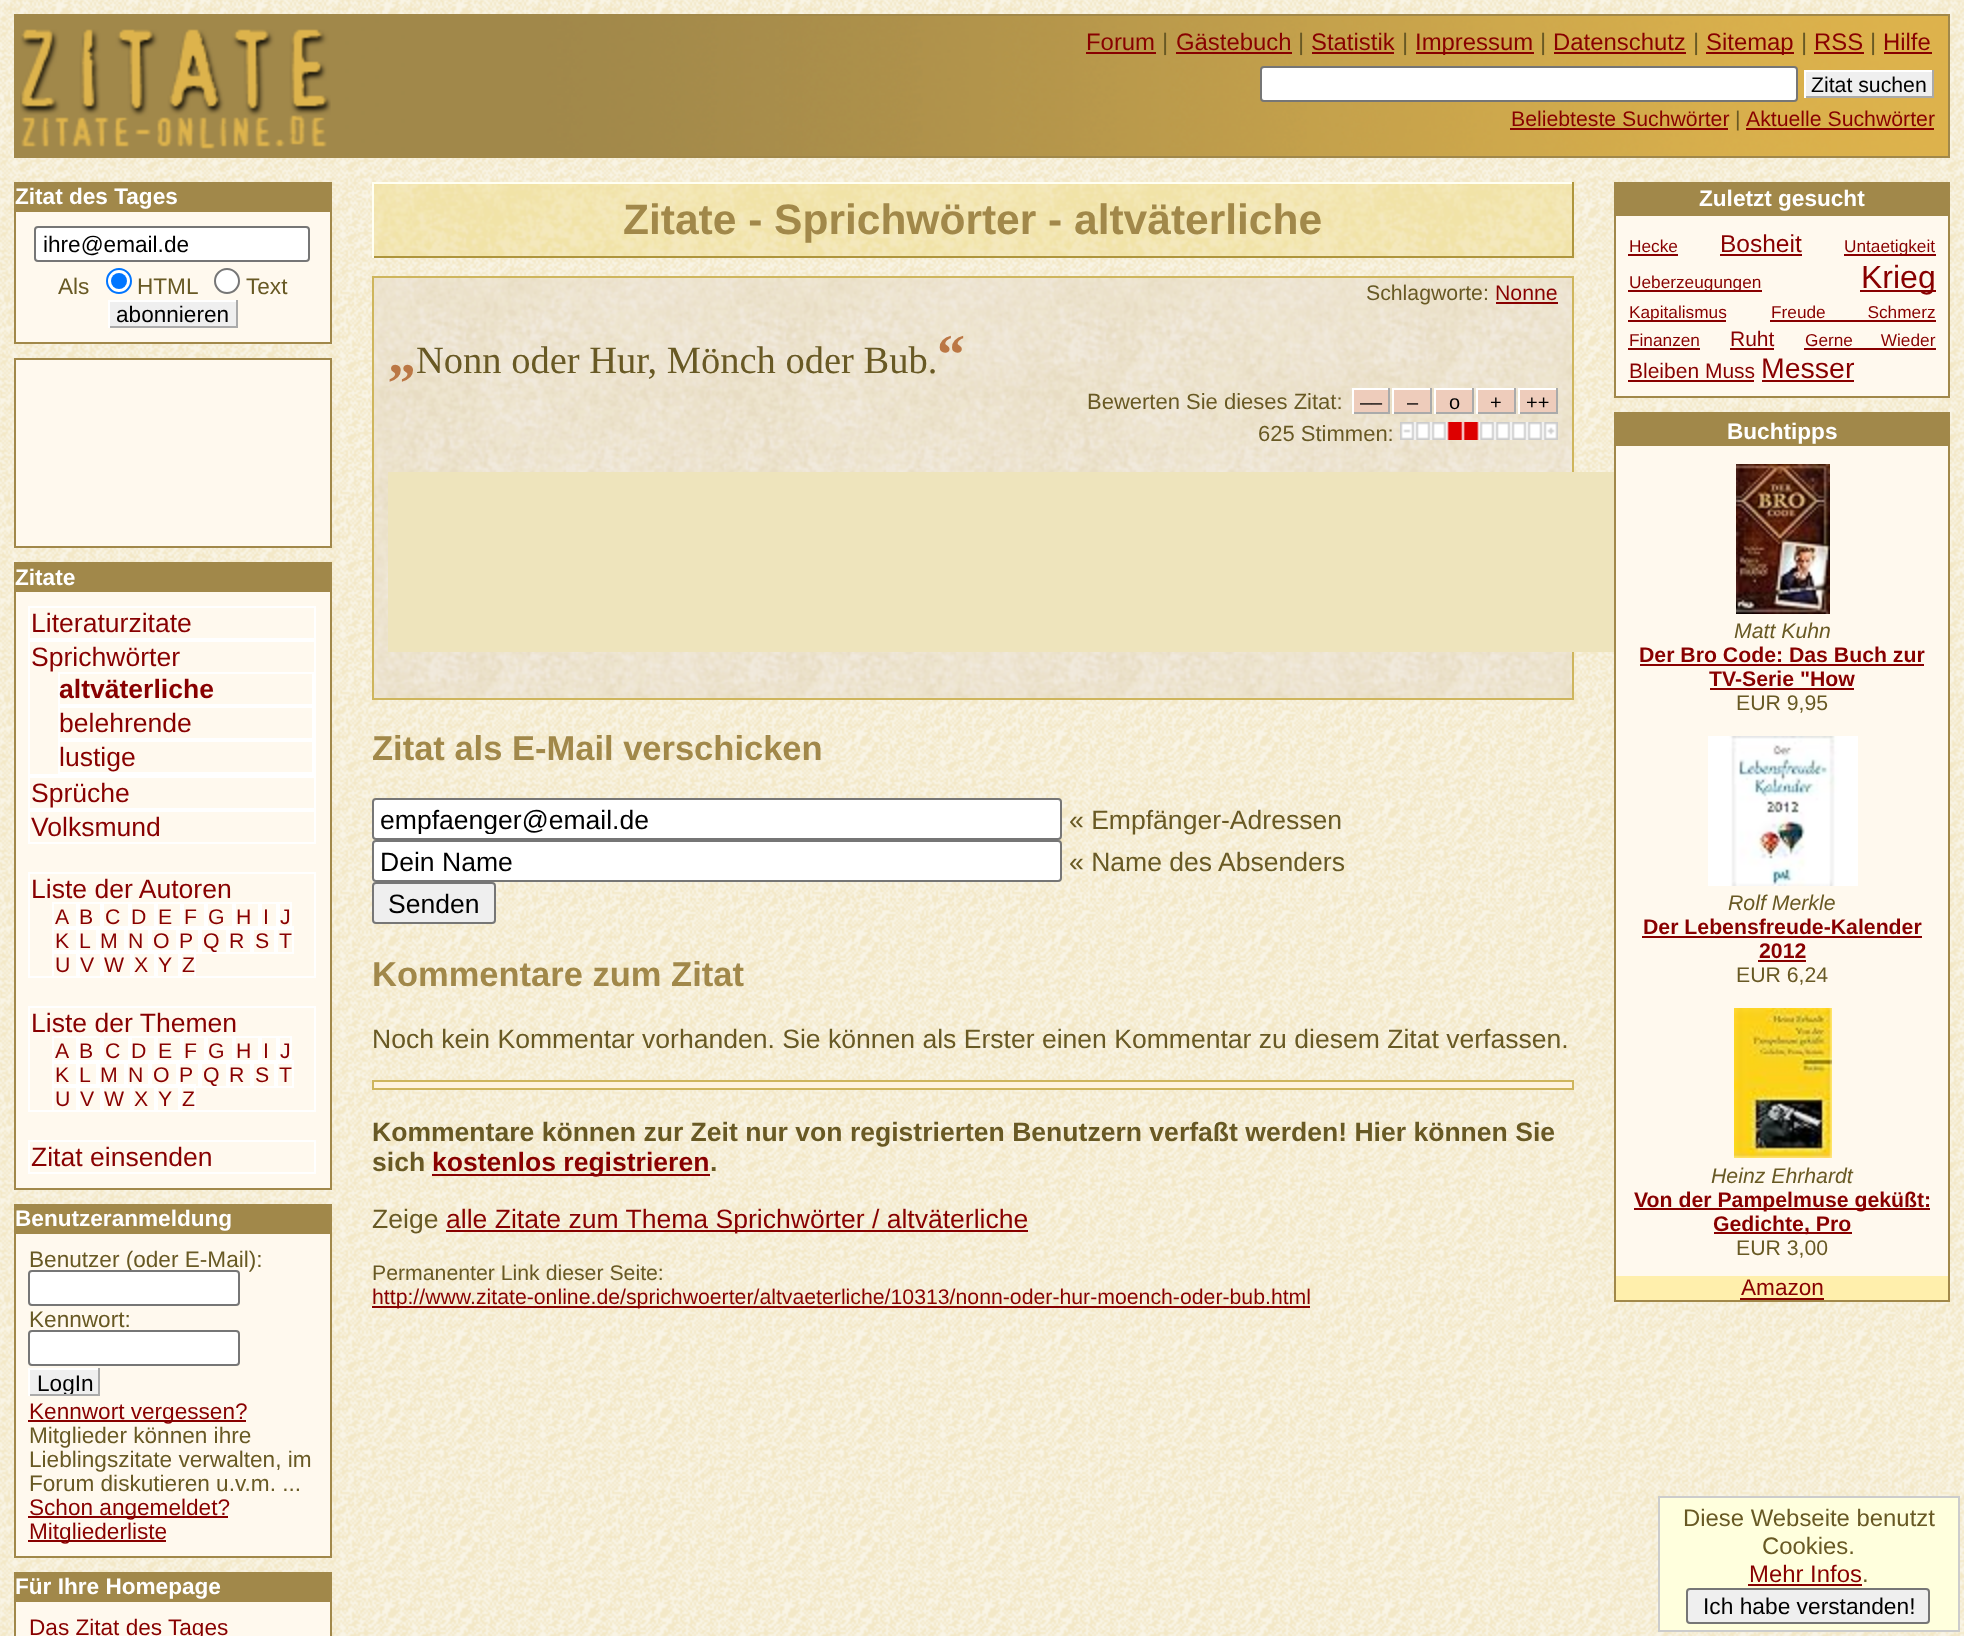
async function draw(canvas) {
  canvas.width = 1964
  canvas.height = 1636
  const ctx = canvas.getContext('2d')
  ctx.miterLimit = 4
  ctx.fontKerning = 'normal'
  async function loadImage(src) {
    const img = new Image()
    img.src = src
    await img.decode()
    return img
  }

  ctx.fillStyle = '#fff'
  ctx.fillRect(0, 0, 1964, 1636)
  ctx.drawImage(await loadImage('image0.png'), 0, 0, 1964, 1636)
  ctx.drawImage(await loadImage('image2.png'), 336, 16, 1612, 140)
  ctx.strokeStyle = '#a1884a'
  ctx.lineWidth = 2
  ctx.strokeRect(75, 15, 1874, 142)
  ctx.fillStyle = '#a1884a'
  ctx.fillRect(14, 14, 322, 144)
  ctx.drawImage(await loadImage('image1.png'), 20, 29, 311, 120)
  ctx.font = '23.9px Liberation Sans'
  ctx.fillStyle = '#800'
  ctx.fillText('Forum', 1086, 50)
  ctx.fillRect(1086, 52, 70, 2)
  ctx.fillStyle = '#685924'
  ctx.fillText('|', 1162, 50)
  ctx.fillStyle = '#800'
  ctx.fillText('Gästebuch', 1176, 50)
  ctx.fillRect(1176, 52, 116, 2)
  ctx.fillStyle = '#685924'
  ctx.fillText('|', 1298, 50)
  ctx.fillStyle = '#800'
  ctx.fillText('Statistik', 1311, 50)
  ctx.fillRect(1312, 52, 82, 2)
  ctx.fillStyle = '#685924'
  ctx.fillText('|', 1402, 50)
  ctx.fillStyle = '#800'
  ctx.fillRect(1416, 52, 118, 2)
  ctx.fillText('Impressum', 1415, 50)
  ctx.fillStyle = '#685924'
  ctx.fillText('|', 1540, 50)
  ctx.fillStyle = '#800'
  ctx.fillText('Datenschutz', 1553, 50)
  ctx.fillRect(1554, 52, 132, 2)
  ctx.fillStyle = '#685924'
  ctx.fillText('|', 1693, 50)
  ctx.fillStyle = '#800'
  ctx.fillRect(1706, 52, 88, 2)
  ctx.fillText('Sitemap', 1706, 50)
  ctx.fillStyle = '#685924'
  ctx.fillText('|', 1801, 50)
  ctx.fillStyle = '#800'
  ctx.fillText('RSS', 1814, 50)
  ctx.fillRect(1814, 52, 50, 2)
  ctx.fillStyle = '#685924'
  ctx.fillText('|', 1870, 50)
  ctx.fillStyle = '#800'
  ctx.fillText('Hilfe', 1883, 50)
  ctx.fillRect(1884, 52, 48, 2)
  ctx.fillStyle = '#fff'
  ctx.beginPath()
  ctx.roundRect(1261, 67, 536, 34, 3)
  ctx.fill()
  ctx.strokeStyle = '#767676'
  ctx.stroke()
  ctx.fillStyle = '#efefef'
  ctx.fillRect(1806, 72, 126, 24)
  ctx.fillStyle = '#fff'
  ctx.fillRect(1804, 70, 130, 2)
  ctx.fillStyle = '#aaa'
  ctx.fillRect(1932, 70, 2, 28)
  ctx.fillRect(1804, 96, 130, 2)
  ctx.fillStyle = '#fff'
  ctx.fillRect(1804, 70, 2, 28)
  ctx.font = '21.25px Liberation Sans'
  ctx.fillStyle = '#000'
  ctx.fillText('Zitat suchen', 1811, 92)
  ctx.fillStyle = '#800'
  ctx.fillText('Beliebteste Suchwörter', 1511, 126)
  ctx.fillRect(1510, 128, 218, 2)
  ctx.fillStyle = '#685924'
  ctx.fillText('|', 1735, 126)
  ctx.fillStyle = '#800'
  ctx.fillText('Aktuelle Suchwörter', 1746, 126)
  ctx.fillRect(1746, 128, 188, 2)
  ctx.fillStyle = '#a1884a'
  ctx.fillRect(14, 182, 318, 28)
  ctx.font = 'bold 22.6px Liberation Sans'
  ctx.fillStyle = '#fff'
  ctx.fillText('Zitat des Tages', 15, 204)
  ctx.fillStyle = '#fff9ee'
  ctx.beginPath()
  ctx.rect(15, 211, 316, 132)
  ctx.fill()
  ctx.strokeStyle = '#a1884a'
  ctx.stroke()
  ctx.fillStyle = '#fff'
  ctx.beginPath()
  ctx.roundRect(35, 227, 274, 34, 3)
  ctx.fill()
  ctx.strokeStyle = '#767676'
  ctx.stroke()
  ctx.font = '22.6px Liberation Sans'
  ctx.fillStyle = '#000'
  ctx.fillText('ihre@email.de', 43, 252)
  ctx.fillStyle = '#685924'
  ctx.fillText('Als', 58, 294)
  ctx.fillStyle = '#fff'
  ctx.beginPath()
  ctx.arc(119, 281, 12, 0, 2 * Math.PI)
  ctx.fill()
  ctx.strokeStyle = '#0075ff'
  ctx.stroke()
  ctx.fillStyle = '#0075ff'
  ctx.beginPath()
  ctx.arc(119, 281, 8, 0, 2 * Math.PI)
  ctx.fill()
  ctx.fillStyle = '#685924'
  ctx.fillText('HTML', 137, 294)
  ctx.fillStyle = '#fff'
  ctx.beginPath()
  ctx.arc(227, 281, 12, 0, 2 * Math.PI)
  ctx.fill()
  ctx.strokeStyle = '#767676'
  ctx.stroke()
  ctx.fillStyle = '#685924'
  ctx.fillText('Text', 246, 294)
  ctx.fillStyle = '#efefef'
  ctx.fillRect(110, 302, 126, 24)
  ctx.fillStyle = '#fff'
  ctx.fillRect(108, 300, 130, 2)
  ctx.fillStyle = '#aaa'
  ctx.fillRect(236, 300, 2, 28)
  ctx.fillRect(108, 326, 130, 2)
  ctx.fillStyle = '#fff'
  ctx.fillRect(108, 300, 2, 28)
  ctx.fillStyle = '#000'
  ctx.fillText('abonnieren', 116, 322)
  ctx.fillStyle = '#fff9ee'
  ctx.beginPath()
  ctx.rect(15, 359, 316, 188)
  ctx.fill()
  ctx.strokeStyle = '#a1884a'
  ctx.stroke()
  ctx.fillStyle = '#a1884a'
  ctx.fillRect(14, 562, 318, 28)
  ctx.font = 'bold 22.6px Liberation Sans'
  ctx.fillStyle = '#fff'
  ctx.fillText('Zitate', 15, 585)
  ctx.fillStyle = '#fff9ee'
  ctx.beginPath()
  ctx.rect(15, 591, 316, 598)
  ctx.fill()
  ctx.stroke()
  ctx.strokeStyle = '#fff'
  ctx.strokeRect(29, 607, 286, 32)
  ctx.font = '26.55px Liberation Sans'
  ctx.fillStyle = '#800'
  ctx.fillText('Literaturzitate', 31, 632)
  ctx.strokeRect(29, 641, 286, 134)
  ctx.fillText('Sprichwörter', 31, 666)
  ctx.strokeRect(59, 673, 254, 32)
  ctx.font = 'bold 26.55px Liberation Sans'
  ctx.fillText('altväterliche', 59, 698)
  ctx.strokeRect(59, 707, 254, 32)
  ctx.font = '26.55px Liberation Sans'
  ctx.fillText('belehrende', 59, 732)
  ctx.strokeRect(59, 741, 254, 32)
  ctx.fillText('lustige', 59, 766)
  ctx.strokeRect(29, 777, 286, 32)
  ctx.fillText('Sprüche', 31, 802)
  ctx.strokeRect(29, 811, 286, 32)
  ctx.fillText('Volksmund', 31, 836)
  ctx.strokeRect(29, 873, 286, 104)
  ctx.fillText('Liste der Autoren', 31, 898)
  ctx.font = '21.25px Liberation Sans'
  ctx.fillText('A', 55, 924)
  ctx.fillStyle = '#fff'
  ctx.fillRect(52, 902, 226, 2)
  ctx.fillRect(52, 928, 16, 2)
  ctx.fillRect(52, 902, 2, 28)
  ctx.fillRect(76, 902, 2, 28)
  ctx.fillRect(68, 928, 26, 2)
  ctx.fillStyle = '#800'
  ctx.fillText('B', 79, 924)
  ctx.fillStyle = '#fff'
  ctx.fillRect(78, 902, 2, 28)
  ctx.fillRect(100, 902, 2, 28)
  ctx.fillRect(94, 928, 26, 2)
  ctx.fillStyle = '#800'
  ctx.fillText('C', 105, 924)
  ctx.fillStyle = '#fff'
  ctx.fillRect(102, 902, 2, 28)
  ctx.fillRect(128, 902, 2, 28)
  ctx.fillRect(120, 928, 26, 2)
  ctx.fillStyle = '#800'
  ctx.fillText('D', 131, 924)
  ctx.fillStyle = '#fff'
  ctx.fillRect(130, 902, 2, 28)
  ctx.fillRect(154, 902, 2, 28)
  ctx.fillRect(146, 928, 26, 2)
  ctx.fillStyle = '#800'
  ctx.fillText('E', 158, 924)
  ctx.fillStyle = '#fff'
  ctx.fillRect(156, 902, 2, 28)
  ctx.fillRect(180, 902, 2, 28)
  ctx.fillRect(172, 928, 24, 2)
  ctx.fillStyle = '#800'
  ctx.fillText('F', 184, 924)
  ctx.fillStyle = '#fff'
  ctx.fillRect(182, 902, 2, 28)
  ctx.fillRect(204, 902, 2, 28)
  ctx.fillRect(196, 928, 28, 2)
  ctx.fillStyle = '#800'
  ctx.fillText('G', 208, 924)
  ctx.fillStyle = '#fff'
  ctx.fillRect(206, 902, 2, 28)
  ctx.fillRect(232, 902, 2, 28)
  ctx.fillRect(224, 928, 28, 2)
  ctx.fillStyle = '#800'
  ctx.fillText('H', 236, 924)
  ctx.fillStyle = '#fff'
  ctx.fillRect(234, 902, 2, 28)
  ctx.fillRect(258, 902, 2, 28)
  ctx.fillRect(252, 928, 16, 2)
  ctx.fillStyle = '#800'
  ctx.fillText('I', 263, 924)
  ctx.fillStyle = '#fff'
  ctx.fillRect(260, 902, 2, 28)
  ctx.fillRect(276, 902, 2, 28)
  ctx.fillRect(268, 928, 10, 2)
  ctx.strokeRect(279, 903, 12, 26)
  ctx.fillStyle = '#800'
  ctx.fillText('J', 280, 924)
  ctx.fillText('K', 55, 948)
  ctx.fillStyle = '#fff'
  ctx.fillRect(52, 926, 224, 2)
  ctx.fillRect(52, 952, 18, 2)
  ctx.fillRect(52, 926, 2, 28)
  ctx.fillRect(76, 926, 2, 28)
  ctx.fillRect(70, 952, 20, 2)
  ctx.fillStyle = '#800'
  ctx.fillText('L', 79, 948)
  ctx.fillStyle = '#fff'
  ctx.fillRect(78, 926, 2, 28)
  ctx.fillRect(96, 926, 2, 28)
  ctx.fillRect(90, 952, 28, 2)
  ctx.fillStyle = '#800'
  ctx.fillText('M', 100, 948)
  ctx.fillStyle = '#fff'
  ctx.fillRect(98, 926, 2, 28)
  ctx.fillRect(124, 926, 2, 28)
  ctx.fillRect(118, 952, 24, 2)
  ctx.fillStyle = '#800'
  ctx.fillText('N', 128, 948)
  ctx.fillStyle = '#fff'
  ctx.fillRect(126, 926, 2, 28)
  ctx.fillRect(148, 926, 2, 28)
  ctx.fillRect(142, 952, 28, 2)
  ctx.fillStyle = '#800'
  ctx.fillText('O', 153, 948)
  ctx.fillStyle = '#fff'
  ctx.fillRect(150, 926, 2, 28)
  ctx.fillRect(176, 926, 2, 28)
  ctx.fillRect(170, 952, 24, 2)
  ctx.fillStyle = '#800'
  ctx.fillText('P', 179, 948)
  ctx.fillStyle = '#fff'
  ctx.fillRect(178, 926, 2, 28)
  ctx.fillRect(198, 926, 2, 28)
  ctx.fillRect(194, 952, 26, 2)
  ctx.fillStyle = '#800'
  ctx.fillText('Q', 203, 948)
  ctx.fillStyle = '#fff'
  ctx.fillRect(200, 926, 2, 28)
  ctx.fillRect(226, 926, 2, 28)
  ctx.fillRect(220, 952, 24, 2)
  ctx.fillStyle = '#800'
  ctx.fillText('R', 229, 948)
  ctx.fillStyle = '#fff'
  ctx.fillRect(228, 926, 2, 28)
  ctx.fillRect(250, 926, 2, 28)
  ctx.fillRect(244, 952, 24, 2)
  ctx.fillStyle = '#800'
  ctx.fillText('S', 255, 948)
  ctx.fillStyle = '#fff'
  ctx.fillRect(252, 926, 2, 28)
  ctx.fillRect(274, 926, 2, 28)
  ctx.fillRect(268, 952, 8, 2)
  ctx.strokeRect(277, 927, 16, 26)
  ctx.fillStyle = '#800'
  ctx.fillText('T', 279, 948)
  ctx.fillText('U', 55, 972)
  ctx.fillStyle = '#fff'
  ctx.fillRect(52, 950, 128, 2)
  ctx.fillRect(52, 950, 2, 28)
  ctx.fillRect(76, 950, 4, 28)
  ctx.fillStyle = '#800'
  ctx.fillText('V', 80, 972)
  ctx.fillStyle = '#fff'
  ctx.fillRect(100, 950, 4, 28)
  ctx.fillStyle = '#800'
  ctx.fillText('W', 104, 972)
  ctx.fillStyle = '#fff'
  ctx.fillRect(130, 950, 4, 28)
  ctx.fillStyle = '#800'
  ctx.fillText('X', 134, 972)
  ctx.fillStyle = '#fff'
  ctx.fillRect(154, 950, 4, 28)
  ctx.fillStyle = '#800'
  ctx.fillText('Y', 158, 972)
  ctx.fillStyle = '#fff'
  ctx.fillRect(178, 950, 2, 28)
  ctx.strokeRect(181, 951, 14, 26)
  ctx.fillStyle = '#800'
  ctx.fillText('Z', 182, 972)
  ctx.strokeRect(29, 1007, 286, 104)
  ctx.font = '26.55px Liberation Sans'
  ctx.fillText('Liste der Themen', 31, 1032)
  ctx.font = '21.25px Liberation Sans'
  ctx.fillText('A', 55, 1058)
  ctx.fillStyle = '#fff'
  ctx.fillRect(52, 1036, 226, 2)
  ctx.fillRect(52, 1062, 16, 2)
  ctx.fillRect(52, 1036, 2, 28)
  ctx.fillRect(76, 1036, 2, 28)
  ctx.fillRect(68, 1062, 26, 2)
  ctx.fillStyle = '#800'
  ctx.fillText('B', 79, 1058)
  ctx.fillStyle = '#fff'
  ctx.fillRect(78, 1036, 2, 28)
  ctx.fillRect(100, 1036, 2, 28)
  ctx.fillRect(94, 1062, 26, 2)
  ctx.fillStyle = '#800'
  ctx.fillText('C', 105, 1058)
  ctx.fillStyle = '#fff'
  ctx.fillRect(102, 1036, 2, 28)
  ctx.fillRect(128, 1036, 2, 28)
  ctx.fillRect(120, 1062, 26, 2)
  ctx.fillStyle = '#800'
  ctx.fillText('D', 131, 1058)
  ctx.fillStyle = '#fff'
  ctx.fillRect(130, 1036, 2, 28)
  ctx.fillRect(154, 1036, 2, 28)
  ctx.fillRect(146, 1062, 26, 2)
  ctx.fillStyle = '#800'
  ctx.fillText('E', 158, 1058)
  ctx.fillStyle = '#fff'
  ctx.fillRect(156, 1036, 2, 28)
  ctx.fillRect(180, 1036, 2, 28)
  ctx.fillRect(172, 1062, 24, 2)
  ctx.fillStyle = '#800'
  ctx.fillText('F', 184, 1058)
  ctx.fillStyle = '#fff'
  ctx.fillRect(182, 1036, 2, 28)
  ctx.fillRect(204, 1036, 2, 28)
  ctx.fillRect(196, 1062, 28, 2)
  ctx.fillStyle = '#800'
  ctx.fillText('G', 208, 1058)
  ctx.fillStyle = '#fff'
  ctx.fillRect(206, 1036, 2, 28)
  ctx.fillRect(232, 1036, 2, 28)
  ctx.fillRect(224, 1062, 28, 2)
  ctx.fillStyle = '#800'
  ctx.fillText('H', 236, 1058)
  ctx.fillStyle = '#fff'
  ctx.fillRect(234, 1036, 2, 28)
  ctx.fillRect(258, 1036, 2, 28)
  ctx.fillRect(252, 1062, 16, 2)
  ctx.fillStyle = '#800'
  ctx.fillText('I', 263, 1058)
  ctx.fillStyle = '#fff'
  ctx.fillRect(260, 1036, 2, 28)
  ctx.fillRect(276, 1036, 2, 28)
  ctx.fillRect(268, 1062, 10, 2)
  ctx.strokeRect(279, 1037, 12, 26)
  ctx.fillStyle = '#800'
  ctx.fillText('J', 280, 1058)
  ctx.fillText('K', 55, 1082)
  ctx.fillStyle = '#fff'
  ctx.fillRect(52, 1060, 224, 2)
  ctx.fillRect(52, 1086, 18, 2)
  ctx.fillRect(52, 1060, 2, 28)
  ctx.fillRect(76, 1060, 2, 28)
  ctx.fillRect(70, 1086, 20, 2)
  ctx.fillStyle = '#800'
  ctx.fillText('L', 79, 1082)
  ctx.fillStyle = '#fff'
  ctx.fillRect(78, 1060, 2, 28)
  ctx.fillRect(96, 1060, 2, 28)
  ctx.fillRect(90, 1086, 28, 2)
  ctx.fillStyle = '#800'
  ctx.fillText('M', 100, 1082)
  ctx.fillStyle = '#fff'
  ctx.fillRect(98, 1060, 2, 28)
  ctx.fillRect(124, 1060, 2, 28)
  ctx.fillRect(118, 1086, 24, 2)
  ctx.fillStyle = '#800'
  ctx.fillText('N', 128, 1082)
  ctx.fillStyle = '#fff'
  ctx.fillRect(126, 1060, 2, 28)
  ctx.fillRect(148, 1060, 2, 28)
  ctx.fillRect(142, 1086, 28, 2)
  ctx.fillStyle = '#800'
  ctx.fillText('O', 153, 1082)
  ctx.fillStyle = '#fff'
  ctx.fillRect(150, 1060, 2, 28)
  ctx.fillRect(176, 1060, 2, 28)
  ctx.fillRect(170, 1086, 24, 2)
  ctx.fillStyle = '#800'
  ctx.fillText('P', 179, 1082)
  ctx.fillStyle = '#fff'
  ctx.fillRect(178, 1060, 2, 28)
  ctx.fillRect(198, 1060, 2, 28)
  ctx.fillRect(194, 1086, 26, 2)
  ctx.fillStyle = '#800'
  ctx.fillText('Q', 203, 1082)
  ctx.fillStyle = '#fff'
  ctx.fillRect(200, 1060, 2, 28)
  ctx.fillRect(226, 1060, 2, 28)
  ctx.fillRect(220, 1086, 24, 2)
  ctx.fillStyle = '#800'
  ctx.fillText('R', 229, 1082)
  ctx.fillStyle = '#fff'
  ctx.fillRect(228, 1060, 2, 28)
  ctx.fillRect(250, 1060, 2, 28)
  ctx.fillRect(244, 1086, 24, 2)
  ctx.fillStyle = '#800'
  ctx.fillText('S', 255, 1082)
  ctx.fillStyle = '#fff'
  ctx.fillRect(252, 1060, 2, 28)
  ctx.fillRect(274, 1060, 2, 28)
  ctx.fillRect(268, 1086, 8, 2)
  ctx.strokeRect(277, 1061, 16, 26)
  ctx.fillStyle = '#800'
  ctx.fillText('T', 279, 1082)
  ctx.fillText('U', 55, 1106)
  ctx.fillStyle = '#fff'
  ctx.fillRect(52, 1084, 128, 2)
  ctx.fillRect(52, 1084, 2, 28)
  ctx.fillRect(76, 1084, 4, 28)
  ctx.fillStyle = '#800'
  ctx.fillText('V', 80, 1106)
  ctx.fillStyle = '#fff'
  ctx.fillRect(100, 1084, 4, 28)
  ctx.fillStyle = '#800'
  ctx.fillText('W', 104, 1106)
  ctx.fillStyle = '#fff'
  ctx.fillRect(130, 1084, 4, 28)
  ctx.fillStyle = '#800'
  ctx.fillText('X', 134, 1106)
  ctx.fillStyle = '#fff'
  ctx.fillRect(154, 1084, 4, 28)
  ctx.fillStyle = '#800'
  ctx.fillText('Y', 158, 1106)
  ctx.fillStyle = '#fff'
  ctx.fillRect(178, 1084, 2, 28)
  ctx.strokeRect(181, 1085, 14, 26)
  ctx.fillStyle = '#800'
  ctx.fillText('Z', 182, 1106)
  ctx.strokeRect(29, 1141, 286, 32)
  ctx.font = '26.55px Liberation Sans'
  ctx.fillText('Zitat einsenden', 31, 1166)
  ctx.fillStyle = '#a1884a'
  ctx.fillRect(14, 1204, 318, 28)
  ctx.font = 'bold 22.6px Liberation Sans'
  ctx.fillStyle = '#fff'
  ctx.fillText('Benutzeranmeldung', 15, 1226)
  ctx.fillStyle = '#fff9ee'
  ctx.beginPath()
  ctx.rect(15, 1233, 316, 324)
  ctx.fill()
  ctx.strokeStyle = '#a1884a'
  ctx.stroke()
  ctx.font = '22.6px Liberation Sans'
  ctx.fillStyle = '#685924'
  ctx.fillText('Benutzer (oder E-Mail):', 29, 1267)
  ctx.fillStyle = '#fff'
  ctx.beginPath()
  ctx.roundRect(29, 1271, 210, 34, 3)
  ctx.fill()
  ctx.strokeStyle = '#767676'
  ctx.stroke()
  ctx.fillStyle = '#685924'
  ctx.fillText('Kennwort:', 29, 1327)
  ctx.fillStyle = '#fff'
  ctx.beginPath()
  ctx.roundRect(29, 1331, 210, 34, 3)
  ctx.fill()
  ctx.stroke()
  ctx.fillStyle = '#efefef'
  ctx.fillRect(30, 1370, 68, 24)
  ctx.fillStyle = '#fff'
  ctx.fillRect(28, 1368, 72, 2)
  ctx.fillStyle = '#aaa'
  ctx.fillRect(98, 1368, 2, 28)
  ctx.fillRect(28, 1394, 72, 2)
  ctx.fillStyle = '#fff'
  ctx.fillRect(28, 1368, 2, 28)
  ctx.save()
  ctx.beginPath()
  ctx.rect(30, 1370, 68, 24)
  ctx.clip()
  ctx.fillStyle = '#000'
  ctx.fillText('LogIn', 37, 1391)
  ctx.restore()
  ctx.fillStyle = '#800'
  ctx.fillRect(28, 1420, 218, 2)
  ctx.fillText('Kennwort vergessen?', 29, 1419)
  ctx.fillStyle = '#685924'
  ctx.fillText('Mitglieder können ihre', 29, 1443)
  ctx.fillText('Lieblingszitate verwalten, im', 29, 1467)
  ctx.fillText('Forum diskutieren u.v.m. ...', 29, 1491)
  ctx.fillStyle = '#800'
  ctx.fillRect(28, 1516, 200, 2)
  ctx.fillText('Schon angemeldet?', 29, 1515)
  ctx.fillRect(28, 1540, 138, 2)
  ctx.fillText('Mitgliederliste', 29, 1539)
  ctx.fillStyle = '#a1884a'
  ctx.fillRect(14, 1572, 318, 28)
  ctx.font = 'bold 22.6px Liberation Sans'
  ctx.fillStyle = '#fff'
  ctx.fillText('Für Ihre Homepage', 15, 1594)
  ctx.fillStyle = '#fff9ee'
  ctx.beginPath()
  ctx.rect(15, 1601, 316, 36)
  ctx.fill()
  ctx.strokeStyle = '#a1884a'
  ctx.stroke()
  ctx.font = '22.6px Liberation Sans'
  ctx.fillStyle = '#800'
  ctx.fillText('Das Zitat des Tages', 29, 1635)
  ctx.drawImage(await loadImage('image3.png'), 374, 184, 1198, 72)
  ctx.fillStyle = '#fffff3'
  ctx.fillRect(372, 182, 1202, 2)
  ctx.fillStyle = '#ae953c'
  ctx.fillRect(1572, 182, 2, 76)
  ctx.fillRect(372, 256, 1202, 2)
  ctx.fillStyle = '#fffff3'
  ctx.fillRect(372, 182, 2, 76)
  ctx.font = 'bold 42.5px Liberation Sans'
  ctx.fillStyle = '#a1884a'
  ctx.fillText('Zitate - Sprichwörter - altväterliche', 623, 234)
  ctx.fillRect(1614, 182, 336, 32)
  ctx.font = 'bold 22.6px Liberation Sans'
  ctx.fillStyle = '#fff'
  ctx.fillText('Zuletzt gesucht', 1699, 206)
  ctx.fillStyle = '#fff9ee'
  ctx.beginPath()
  ctx.rect(1615, 215, 334, 182)
  ctx.fill()
  ctx.stroke()
  ctx.font = '17.25px Liberation Sans'
  ctx.fillStyle = '#800'
  ctx.fillText('Hecke', 1629, 252)
  ctx.fillRect(1628, 254, 50, 2)
  ctx.font = '24.5px Liberation Sans'
  ctx.fillText('Bosheit', 1720, 252)
  ctx.fillRect(1720, 254, 82, 2)
  ctx.fillRect(1844, 254, 92, 2)
  ctx.font = '17.25px Liberation Sans'
  ctx.fillText('Untaetigkeit', 1844, 252)
  ctx.fillRect(1628, 290, 134, 2)
  ctx.fillText('Ueberzeugungen', 1629, 288)
  ctx.fillRect(1860, 290, 76, 2)
  ctx.font = '32px Liberation Sans'
  ctx.fillText('Krieg', 1861, 288)
  ctx.fillRect(1628, 320, 98, 2)
  ctx.font = '17.25px Liberation Sans'
  ctx.fillText('Kapitalismus', 1629, 318)
  ctx.wordSpacing = '37px'
  ctx.fillText('Freude Schmerz', 1771, 318)
  ctx.fillRect(1770, 320, 166, 2)
  ctx.wordSpacing = '0px'
  ctx.fillText('Finanzen', 1629, 346)
  ctx.fillRect(1628, 348, 72, 2)
  ctx.font = '21px Liberation Sans'
  ctx.fillText('Ruht', 1730, 346)
  ctx.fillRect(1730, 348, 44, 2)
  ctx.wordSpacing = '23px'
  ctx.font = '17.25px Liberation Sans'
  ctx.fillText('Gerne Wieder', 1805, 346)
  ctx.fillRect(1804, 348, 132, 2)
  ctx.wordSpacing = '0px'
  ctx.font = '21px Liberation Sans'
  ctx.fillText('Bleiben Muss', 1629, 378)
  ctx.fillRect(1628, 380, 126, 2)
  ctx.font = '28.5px Liberation Sans'
  ctx.fillText('Messer', 1761, 378)
  ctx.fillRect(1762, 380, 92, 2)
  ctx.fillStyle = '#fff9ee'
  ctx.fillRect(1616, 446, 332, 830)
  ctx.strokeRect(1615, 413, 334, 888)
  ctx.fillStyle = '#a1884a'
  ctx.fillRect(1616, 414, 332, 32)
  ctx.font = 'bold 22.6px Liberation Sans'
  ctx.fillStyle = '#fff'
  ctx.fillText('Buchtipps', 1727, 439)
  ctx.drawImage(await loadImage('image4.png'), 1736, 464, 94, 150)
  ctx.font = 'italic 21.25px Liberation Sans'
  ctx.fillStyle = '#685924'
  ctx.fillText('Matt Kuhn', 1734, 638)
  ctx.font = 'bold 21.25px Liberation Sans'
  ctx.fillStyle = '#800'
  ctx.fillText('Der Bro Code: Das Buch zur', 1639, 662)
  ctx.fillRect(1640, 664, 284, 2)
  ctx.fillText('TV-Serie "How', 1709, 686)
  ctx.fillRect(1710, 688, 144, 2)
  ctx.font = '21.25px Liberation Sans'
  ctx.fillStyle = '#685924'
  ctx.fillText('EUR 9,95', 1736, 710)
  ctx.drawImage(await loadImage('image5.png'), 1708, 736, 150, 150)
  ctx.font = 'italic 21.25px Liberation Sans'
  ctx.fillText('Rolf Merkle', 1728, 910)
  ctx.font = 'bold 21.25px Liberation Sans'
  ctx.fillStyle = '#800'
  ctx.fillText('Der Lebensfreude-Kalender', 1643, 934)
  ctx.fillRect(1642, 936, 280, 2)
  ctx.fillText('2012', 1759, 958)
  ctx.fillRect(1758, 960, 48, 2)
  ctx.font = '21.25px Liberation Sans'
  ctx.fillStyle = '#685924'
  ctx.fillText('EUR 6,24', 1736, 982)
  ctx.drawImage(await loadImage('image6.png'), 1734, 1008, 98, 150)
  ctx.font = 'italic 21.25px Liberation Sans'
  ctx.fillText('Heinz Ehrhardt', 1711, 1183)
  ctx.fillStyle = '#800'
  ctx.fillRect(1634, 1208, 296, 2)
  ctx.font = 'bold 21.25px Liberation Sans'
  ctx.fillText('Von der Pampelmuse geküßt:', 1634, 1207)
  ctx.fillRect(1714, 1232, 138, 2)
  ctx.fillText('Gedichte, Pro', 1713, 1231)
  ctx.font = '21.25px Liberation Sans'
  ctx.fillStyle = '#685924'
  ctx.fillText('EUR 3,00', 1736, 1255)
  ctx.fillStyle = '#ffefac'
  ctx.fillRect(1616, 1276, 332, 24)
  ctx.font = '22.6px Liberation Sans'
  ctx.fillStyle = '#800'
  ctx.fillText('Amazon', 1741, 1295)
  ctx.fillRect(1740, 1298, 84, 2)
  ctx.drawImage(await loadImage('image7.png'), 374, 278, 1198, 420)
  ctx.strokeStyle = '#ceb55c'
  ctx.strokeRect(373, 277, 1200, 422)
  ctx.font = '21.25px Liberation Sans'
  ctx.fillStyle = '#685924'
  ctx.fillText('Schlagworte:', 1366, 300)
  ctx.fillStyle = '#800'
  ctx.fillText('Nonne', 1495, 300)
  ctx.fillRect(1496, 302, 62, 2)
  ctx.font = 'bold 56px Liberation Serif'
  ctx.fillStyle = '#b74'
  ctx.fillText('“', 937, 373)
  ctx.fillText('„', 388, 373)
  ctx.font = '38.5px Liberation Serif'
  ctx.fillStyle = '#685924'
  ctx.fillText('Nonn oder Hur, Mönch oder Bub.', 416, 373)
  ctx.font = '22px Liberation Sans'
  ctx.fillText('Bewerten Sie dieses Zitat:', 1087, 409)
  ctx.fillStyle = '#ecb'
  ctx.fillRect(1354, 390, 34, 22)
  ctx.fillStyle = '#fff'
  ctx.fillRect(1352, 388, 38, 2)
  ctx.fillStyle = '#aaa'
  ctx.fillRect(1388, 388, 2, 26)
  ctx.fillRect(1352, 412, 38, 2)
  ctx.fillStyle = '#fff'
  ctx.fillRect(1352, 388, 2, 26)
  ctx.font = '20px Liberation Sans'
  ctx.fillStyle = '#000'
  ctx.fillText('––', 1360, 409)
  ctx.fillStyle = '#ecb'
  ctx.fillRect(1394, 390, 36, 22)
  ctx.fillStyle = '#fff'
  ctx.fillRect(1392, 388, 40, 2)
  ctx.fillStyle = '#aaa'
  ctx.fillRect(1430, 388, 2, 26)
  ctx.fillRect(1392, 412, 40, 2)
  ctx.fillStyle = '#fff'
  ctx.fillRect(1392, 388, 2, 26)
  ctx.fillStyle = '#000'
  ctx.fillText('–', 1407, 409)
  ctx.fillStyle = '#ecb'
  ctx.fillRect(1436, 390, 36, 22)
  ctx.fillStyle = '#fff'
  ctx.fillRect(1434, 388, 40, 2)
  ctx.fillStyle = '#aaa'
  ctx.fillRect(1472, 388, 2, 26)
  ctx.fillRect(1434, 412, 40, 2)
  ctx.fillStyle = '#fff'
  ctx.fillRect(1434, 388, 2, 26)
  ctx.fillStyle = '#000'
  ctx.fillText('o', 1449, 409)
  ctx.fillStyle = '#ecb'
  ctx.fillRect(1478, 390, 36, 22)
  ctx.fillStyle = '#fff'
  ctx.fillRect(1476, 388, 40, 2)
  ctx.fillStyle = '#aaa'
  ctx.fillRect(1514, 388, 2, 26)
  ctx.fillRect(1476, 412, 40, 2)
  ctx.fillStyle = '#fff'
  ctx.fillRect(1476, 388, 2, 26)
  ctx.fillStyle = '#000'
  ctx.fillText('+', 1490, 409)
  ctx.fillStyle = '#ecb'
  ctx.fillRect(1520, 390, 36, 22)
  ctx.fillStyle = '#fff'
  ctx.fillRect(1518, 388, 40, 2)
  ctx.fillStyle = '#aaa'
  ctx.fillRect(1556, 388, 2, 26)
  ctx.fillRect(1518, 412, 40, 2)
  ctx.fillStyle = '#fff'
  ctx.fillRect(1518, 388, 2, 26)
  ctx.fillStyle = '#000'
  ctx.fillText('++', 1526, 409)
  ctx.font = '22px Liberation Sans'
  ctx.fillStyle = '#685924'
  ctx.fillText('625 Stimmen:', 1258, 441)
  ctx.drawImage(await loadImage('image8.png'), 1400, 422, 158, 18)
  ctx.fillStyle = '#eee4bc'
  ctx.fillRect(388, 472, 1226, 180)
  ctx.font = 'bold 34.5px Liberation Sans'
  ctx.fillStyle = '#a1884a'
  ctx.fillText('Zitat als E-Mail verschicken', 372, 760)
  ctx.fillStyle = '#fff'
  ctx.beginPath()
  ctx.roundRect(373, 799, 688, 40, 3)
  ctx.fill()
  ctx.strokeStyle = '#767676'
  ctx.stroke()
  ctx.save()
  ctx.beginPath()
  ctx.rect(380, 804, 674, 30)
  ctx.clip()
  ctx.font = '26.55px Liberation Sans'
  ctx.fillStyle = '#000'
  ctx.fillText('empfaenger@email.de', 380, 829)
  ctx.restore()
  ctx.font = '26.55px Liberation Sans'
  ctx.fillStyle = '#685924'
  ctx.fillText('« Empfänger-Adressen', 1069, 829)
  ctx.fillStyle = '#fff'
  ctx.beginPath()
  ctx.roundRect(373, 841, 688, 40, 3)
  ctx.fill()
  ctx.stroke()
  ctx.fillStyle = '#000'
  ctx.fillText('Dein Name', 380, 871)
  ctx.fillStyle = '#685924'
  ctx.fillText('« Name des Absenders', 1069, 871)
  ctx.fillStyle = '#efefef'
  ctx.beginPath()
  ctx.roundRect(373, 883, 122, 40, 3)
  ctx.fill()
  ctx.stroke()
  ctx.fillStyle = '#000'
  ctx.fillText('Senden', 388, 913)
  ctx.font = 'bold 34.5px Liberation Sans'
  ctx.fillStyle = '#a1884a'
  ctx.fillText('Kommentare zum Zitat', 372, 986)
  ctx.font = '26.55px Liberation Sans'
  ctx.fillStyle = '#685924'
  ctx.fillText('Noch kein Kommentar vorhanden. Sie können als Erster einen Kommentar zu diesem Zitat verfassen.', 372, 1048)
  ctx.fillStyle = '#fff3dd'
  ctx.beginPath()
  ctx.rect(373, 1081, 1200, 8)
  ctx.fill()
  ctx.strokeStyle = '#ceb55c'
  ctx.stroke()
  ctx.font = 'bold 26.55px Liberation Sans'
  ctx.fillStyle = '#685924'
  ctx.fillText('Kommentare können zur Zeit nur von registrierten Benutzern verfaßt werden! Hier können Sie', 372, 1141)
  ctx.fillText('sich', 372, 1171)
  ctx.fillStyle = '#800'
  ctx.fillRect(432, 1174, 278, 2)
  ctx.fillText('kostenlos registrieren', 432, 1171)
  ctx.fillStyle = '#685924'
  ctx.fillText('.', 710, 1171)
  ctx.font = '26.55px Liberation Sans'
  ctx.fillText('Zeige', 372, 1228)
  ctx.fillStyle = '#800'
  ctx.fillRect(446, 1230, 582, 2)
  ctx.fillText('alle Zitate zum Thema Sprichwörter / altväterliche', 446, 1228)
  ctx.font = '21.25px Liberation Sans'
  ctx.fillStyle = '#685924'
  ctx.fillText('Permanenter Link dieser Seite:', 372, 1280)
  ctx.fillStyle = '#800'
  ctx.fillRect(372, 1306, 938, 2)
  ctx.fillText('http://www.zitate-online.de/sprichwoerter/altvaeterliche/10313/nonn-oder-hur-moench-oder-bub.html', 372, 1304)
  ctx.fillStyle = '#ffd'
  ctx.beginPath()
  ctx.rect(1659, 1497, 300, 134)
  ctx.fill()
  ctx.strokeStyle = '#ccc'
  ctx.stroke()
  ctx.font = '23.9px Liberation Sans'
  ctx.fillStyle = '#685924'
  ctx.fillText('Diese Webseite benutzt', 1683, 1526)
  ctx.fillText('Cookies.', 1762, 1554)
  ctx.fillStyle = '#800'
  ctx.fillText('Mehr Infos', 1749, 1582)
  ctx.fillRect(1748, 1584, 114, 2)
  ctx.fillStyle = '#685924'
  ctx.fillText('.', 1862, 1582)
  ctx.fillStyle = '#efefef'
  ctx.beginPath()
  ctx.roundRect(1687, 1589, 242, 34, 3)
  ctx.fill()
  ctx.strokeStyle = '#767676'
  ctx.stroke()
  ctx.font = '22.75px Liberation Sans'
  ctx.fillStyle = '#000'
  ctx.fillText('Ich habe verstanden!', 1703, 1614)
}

draw(document.querySelector('canvas'))
